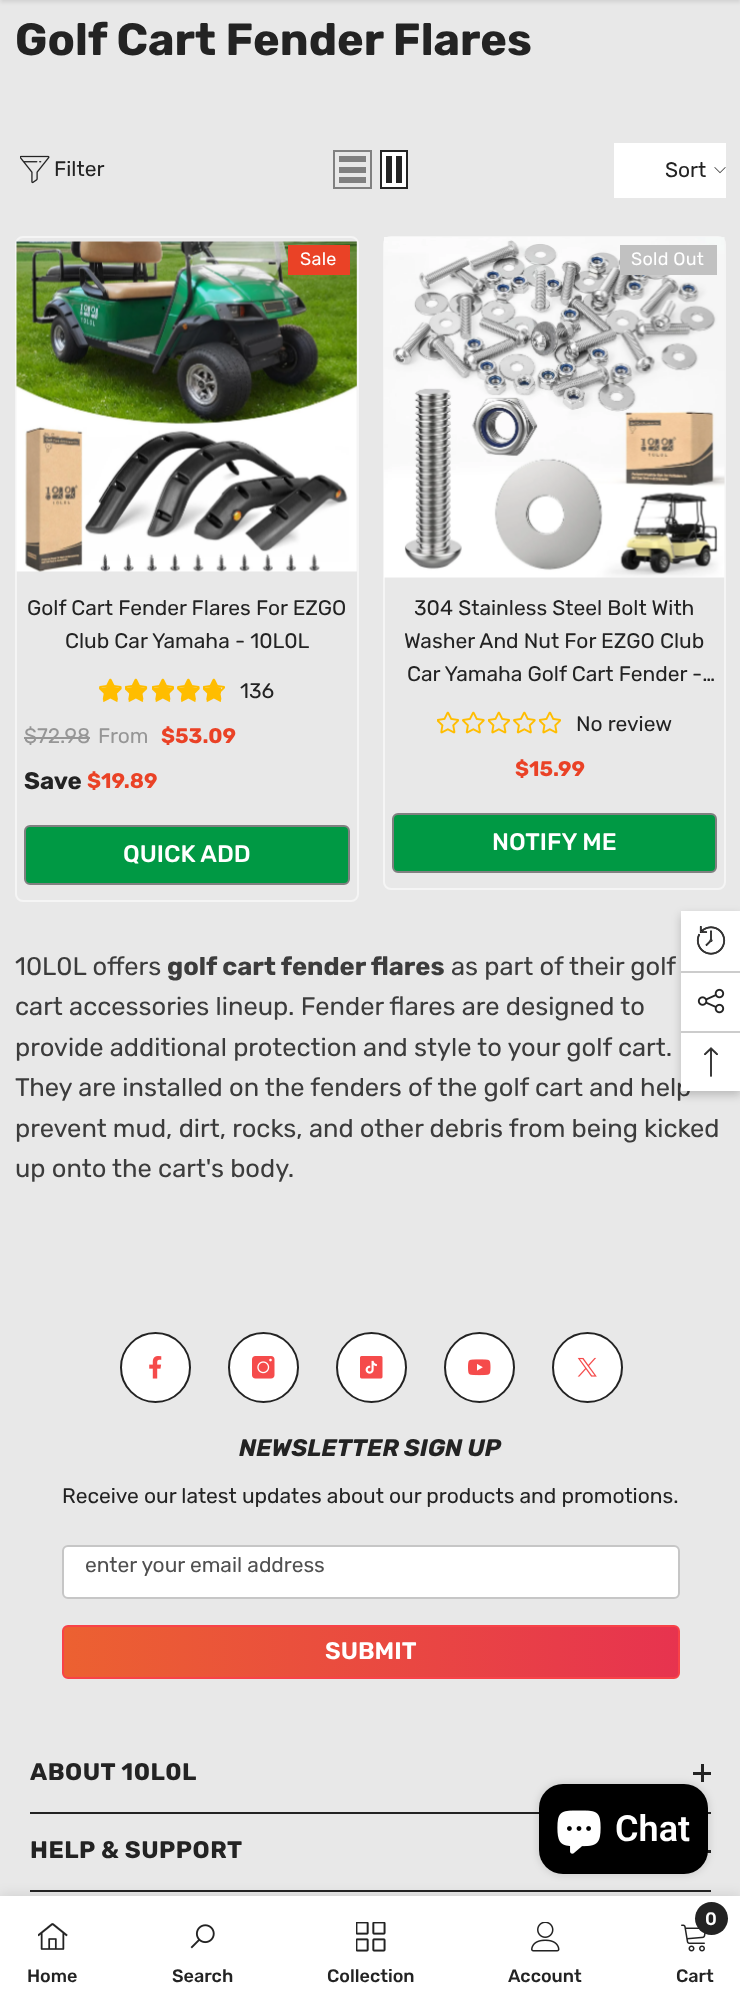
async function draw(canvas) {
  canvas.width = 740
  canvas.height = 2001
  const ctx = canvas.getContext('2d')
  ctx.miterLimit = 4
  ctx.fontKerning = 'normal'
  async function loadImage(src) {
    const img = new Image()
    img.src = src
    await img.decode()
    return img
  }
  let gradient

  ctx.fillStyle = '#e8e8e8'
  ctx.fillRect(0, 0, 740, 2001)
  ctx.fillStyle = '#0000001a'
  ctx.filter = 'blur(2px)'
  ctx.beginPath()
  ctx.rect(0, -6, 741, 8)
  ctx.fill()
  ctx.filter = 'none'
  ctx.font = 'bold 45px Rubik'
  ctx.fillStyle = '#232323'
  ctx.fillText('Golf Cart Fender Flares', 15, 55)
  ctx.drawImage(await loadImage('image0.png'), 20, 155, 30, 29)
  ctx.font = '21px Rubik'
  ctx.fillText('Filter', 54, 176)
  ctx.strokeStyle = '#808080'
  ctx.lineWidth = 2
  ctx.strokeRect(334, 151, 37, 37)
  ctx.fillStyle = '#808080'
  ctx.fillRect(339, 177, 27, 6)
  ctx.fillRect(339, 167, 27, 6)
  ctx.fillRect(339, 156, 27, 6)
  ctx.fillStyle = '#fff'
  ctx.beginPath()
  ctx.rect(381, 151, 26, 37)
  ctx.fill()
  ctx.strokeStyle = '#232323'
  ctx.stroke()
  ctx.fillStyle = '#232323'
  ctx.fillRect(396, 156, 6, 27)
  ctx.fillRect(386, 156, 6, 27)
  ctx.fillStyle = '#fff'
  ctx.fillRect(614, 143, 112, 55)
  ctx.fillStyle = '#232323'
  ctx.fillText('Sort', 665, 177)
  ctx.drawImage(await loadImage('image1.png'), 714, 167, 12, 7)
  ctx.beginPath()
  ctx.roundRect(16, 237, 342, 664, 7)
  ctx.strokeStyle = '#f5f5f5'
  ctx.stroke()
  ctx.drawImage(await loadImage('image2.png'), 16, 241, 341, 331)
  ctx.fillStyle = '#ea4226'
  ctx.fillRect(288, 245, 62, 30)
  ctx.letterSpacing = '0.25px'
  ctx.font = '18px Rubik'
  ctx.fillStyle = '#fff'
  ctx.fillText('Sale', 300, 265)
  ctx.letterSpacing = '0px'
  ctx.font = '21px Rubik'
  ctx.fillStyle = '#232323'
  ctx.fillText('Golf Cart Fender Flares For EZGO', 27, 615)
  ctx.fillText('Club Car Yamaha - 10L0L', 65, 648)
  ctx.drawImage(await loadImage('image3.png'), 99, 678, 23, 23)
  ctx.drawImage(await loadImage('image4.png'), 99, 681, 23, 21)
  ctx.drawImage(await loadImage('image5.png'), 125, 678, 23, 23)
  ctx.drawImage(await loadImage('image6.png'), 125, 681, 23, 21)
  ctx.drawImage(await loadImage('image7.png'), 152, 678, 22, 23)
  ctx.drawImage(await loadImage('image8.png'), 152, 681, 22, 21)
  ctx.drawImage(await loadImage('image3.png'), 177, 678, 23, 23)
  ctx.drawImage(await loadImage('image4.png'), 177, 681, 23, 21)
  ctx.drawImage(await loadImage('image7.png'), 203, 678, 22, 23)
  ctx.drawImage(await loadImage('image9.png'), 203, 681, 18, 21)
  ctx.fillText('136', 240, 698)
  ctx.fillStyle = '#969696'
  ctx.fillText('$72.98', 24, 743)
  ctx.fillRect(24, 737, 66, 2)
  ctx.fillText('From', 98, 743)
  ctx.font = 'bold 21px Rubik'
  ctx.fillStyle = '#ea4226'
  ctx.fillText('$53.09', 161, 743)
  ctx.font = 'bold 24px Rubik'
  ctx.fillStyle = '#232323'
  ctx.fillText('Save', 24, 789)
  ctx.font = 'bold 21px Rubik'
  ctx.fillStyle = '#ea4226'
  ctx.fillText('$19.89', 87, 788)
  ctx.fillStyle = '#094'
  ctx.beginPath()
  ctx.roundRect(25, 826, 324, 58, 5)
  ctx.fill()
  ctx.strokeStyle = '#808080'
  ctx.stroke()
  ctx.font = '500 24px Rubik'
  ctx.fillStyle = '#fff'
  ctx.fillText('QUICK ADD', 123, 862)
  ctx.beginPath()
  ctx.roundRect(384, 237, 341, 652, 7)
  ctx.strokeStyle = '#f5f5f5'
  ctx.stroke()
  ctx.drawImage(await loadImage('image10.png'), 384, 237, 341, 341)
  ctx.fillStyle = '#c1c1c1'
  ctx.fillRect(620, 245, 97, 30)
  ctx.letterSpacing = '0.25px'
  ctx.font = '18px Rubik'
  ctx.fillStyle = '#fff'
  ctx.fillText('Sold Out', 631, 265)
  ctx.letterSpacing = '0px'
  ctx.font = '21px Rubik'
  ctx.fillStyle = '#232323'
  ctx.fillText('304 Stainless Steel Bolt With', 414, 615)
  ctx.fillText('Washer And Nut For EZGO Club', 404, 648)
  ctx.fillText('Car Yamaha Golf Cart Fender -…', 407, 681)
  ctx.drawImage(await loadImage('image7.png'), 437, 711, 22, 23)
  ctx.drawImage(await loadImage('image3.png'), 462, 711, 23, 23)
  ctx.drawImage(await loadImage('image7.png'), 488, 711, 22, 23)
  ctx.drawImage(await loadImage('image3.png'), 513, 711, 23, 23)
  ctx.drawImage(await loadImage('image7.png'), 539, 711, 22, 23)
  ctx.fillText('No review', 576, 731)
  ctx.font = 'bold 21px Rubik'
  ctx.fillStyle = '#ea4226'
  ctx.fillText('$15.99', 515, 776)
  ctx.fillStyle = '#094'
  ctx.beginPath()
  ctx.roundRect(393, 814, 323, 58, 5)
  ctx.fill()
  ctx.strokeStyle = '#808080'
  ctx.stroke()
  ctx.font = '500 24px Rubik'
  ctx.fillStyle = '#fff'
  ctx.fillText('NOTIFY ME', 492, 850)
  ctx.font = '25.5px Rubik'
  ctx.fillStyle = '#3c3c3c'
  ctx.fillText('10L0L offers', 15, 975)
  ctx.font = 'bold 25.5px Rubik'
  ctx.fillText('golf cart fender flares', 167, 975)
  ctx.font = '25.5px Rubik'
  ctx.fillText('as part of their golf', 451, 975)
  ctx.fillText('cart accessories lineup. Fender flares are designed to', 15, 1015)
  ctx.fillText('provide additional protection and style to your golf cart.', 15, 1056)
  ctx.fillText('They are installed on the fenders of the golf cart and help', 15, 1096)
  ctx.fillText('prevent mud, dirt, rocks, and other debris from being kicked', 15, 1137)
  ctx.fillText('up onto the cart\'s body.', 15, 1177)
  ctx.fillStyle = '#fff'
  ctx.beginPath()
  ctx.arc(155.5, 1367.5, 34.5, 0, 2 * Math.PI)
  ctx.fill()
  ctx.strokeStyle = '#232323'
  ctx.stroke()
  ctx.drawImage(await loadImage('image11.png'), 149, 1356, 13, 23)
  ctx.beginPath()
  ctx.arc(263.5, 1367.5, 34.5, 0, 2 * Math.PI)
  ctx.fill()
  ctx.stroke()
  ctx.drawImage(await loadImage('image12.png'), 252, 1356, 23, 23)
  ctx.beginPath()
  ctx.arc(371.5, 1367.5, 34.5, 0, 2 * Math.PI)
  ctx.fill()
  ctx.stroke()
  ctx.drawImage(await loadImage('image13.png'), 360, 1356, 23, 23)
  ctx.beginPath()
  ctx.arc(479.5, 1367.5, 34.5, 0, 2 * Math.PI)
  ctx.fill()
  ctx.stroke()
  ctx.drawImage(await loadImage('image14.png'), 468, 1359, 23, 17)
  ctx.beginPath()
  ctx.arc(587.5, 1367.5, 34.5, 0, 2 * Math.PI)
  ctx.fill()
  ctx.stroke()
  ctx.drawImage(await loadImage('image15.png'), 577, 1357, 20, 20)
  ctx.font = 'italic bold 24px Rubik'
  ctx.fillStyle = '#232323'
  ctx.fillText('NEWSLETTER SIGN UP', 239, 1456)
  ctx.font = '21px Rubik'
  ctx.fillText('Receive our latest updates about our products and promotions.', 62, 1503)
  ctx.fillStyle = '#fff'
  ctx.beginPath()
  ctx.roundRect(63, 1546, 616, 52, 5)
  ctx.fill()
  ctx.strokeStyle = '#c6c6c6'
  ctx.stroke()
  ctx.fillStyle = '#505050'
  ctx.fillText('enter your email address', 85, 1572)
  gradient = ctx.createLinearGradient(62, 1652, 680, 1652)
  gradient.addColorStop(0, '#ec6131')
  gradient.addColorStop(1, '#e7334f')
  ctx.fillStyle = gradient
  ctx.beginPath()
  ctx.roundRect(63, 1626, 616, 52, 5)
  ctx.fill()
  ctx.strokeStyle = '#f84248'
  ctx.stroke()
  ctx.font = '600 24px Rubik'
  ctx.fillStyle = '#fff'
  ctx.fillText('SUBMIT', 325, 1659)
  ctx.fillStyle = '#232323'
  ctx.fillRect(30, 1812, 681, 2)
  ctx.letterSpacing = '0.5px'
  ctx.font = 'bold 24px Rubik'
  ctx.fillText('ABOUT 10L0L', 30, 1780)
  ctx.fillRect(701, 1764, 3, 18)
  ctx.fillRect(693, 1772, 18, 3)
  ctx.fillRect(30, 1890, 681, 2)
  ctx.fillText('HELP & SUPPORT', 30, 1858)
  ctx.fillRect(707, 1850, 4, 3)
  ctx.fillStyle = '#0000001f'
  ctx.filter = 'blur(7px)'
  ctx.beginPath()
  ctx.rect(0, 1896, 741, 105)
  ctx.fill()
  ctx.filter = 'none'
  ctx.fillStyle = '#fff'
  ctx.fillRect(0, 1896, 740, 105)
  ctx.drawImage(await loadImage('image16.png'), 38, 1923, 30, 27)
  ctx.letterSpacing = '0px'
  ctx.font = '500 18px Rubik'
  ctx.fillStyle = '#232323'
  ctx.fillText('Home', 27, 1982)
  ctx.drawImage(await loadImage('image17.png'), 190, 1924, 25, 25)
  ctx.fillText('Search', 172, 1982)
  ctx.drawImage(await loadImage('image18.png'), 356, 1922, 30, 30)
  ctx.fillText('Collection', 327, 1982)
  ctx.drawImage(await loadImage('image19.png'), 531, 1922, 29, 30)
  ctx.fillText('Account', 508, 1982)
  ctx.drawImage(await loadImage('image20.png'), 681, 1924, 25, 28)
  ctx.beginPath()
  ctx.arc(711.5, 1918.5, 16.5, 0, 2 * Math.PI)
  ctx.fill()
  ctx.fillStyle = '#fff'
  ctx.fillText('0', 705, 1925)
  ctx.fillStyle = '#232323'
  ctx.fillText('Cart', 676, 1982)
  ctx.fillStyle = '#00000033'
  ctx.filter = 'blur(5px)'
  ctx.beginPath()
  ctx.rect(681, 915, 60, 180)
  ctx.fill()
  ctx.filter = 'none'
  ctx.fillStyle = '#fff'
  ctx.fillRect(681, 911, 59, 180)
  ctx.drawImage(await loadImage('image21.png'), 696, 926, 30, 29)
  ctx.fillStyle = '#ccc'
  ctx.fillRect(681, 971, 59, 2)
  ctx.drawImage(await loadImage('image22.png'), 697, 988, 28, 26)
  ctx.fillRect(681, 1031, 59, 2)
  ctx.drawImage(await loadImage('image23.png'), 704, 1047, 14, 30)
  ctx.fillStyle = '#00000026'
  ctx.filter = 'blur(4px)'
  ctx.beginPath()
  ctx.roundRect(539, 1784, 169, 90, 24)
  ctx.fill()
  ctx.filter = 'none'
  ctx.fillStyle = '#000'
  ctx.beginPath()
  ctx.roundRect(539, 1784, 169, 90, 24)
  ctx.fill()
  ctx.drawImage(await loadImage('image24.png'), 557, 1810, 44, 44)
  ctx.font = '600 36px Roboto'
  ctx.fillStyle = '#fff'
  ctx.fillText('Chat', 615, 1841)
}

draw(document.querySelector('canvas'))
